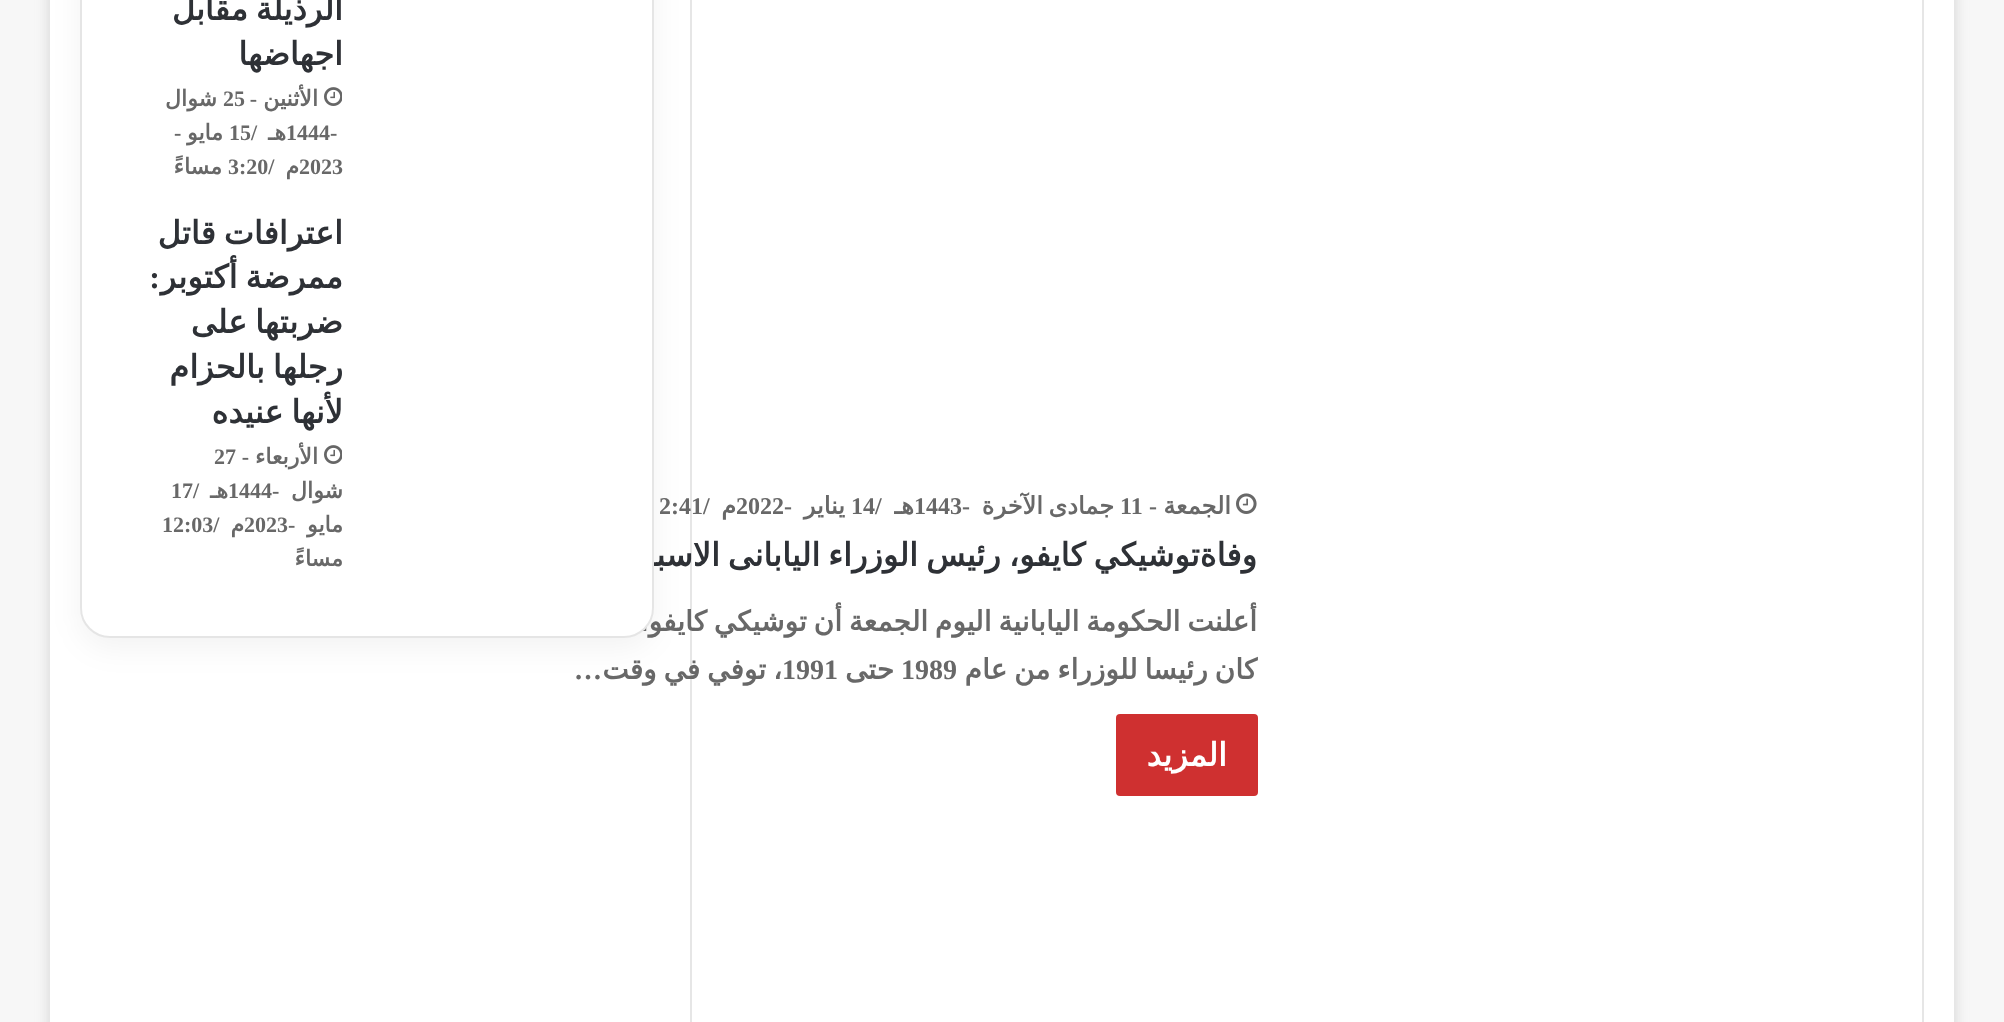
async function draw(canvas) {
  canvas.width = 2004
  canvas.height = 1022
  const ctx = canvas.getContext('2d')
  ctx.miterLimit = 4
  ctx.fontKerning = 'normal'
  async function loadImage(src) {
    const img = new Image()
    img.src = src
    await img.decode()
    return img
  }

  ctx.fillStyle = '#f7f7f7'
  ctx.fillRect(0, 0, 2004, 1022)
  ctx.fillStyle = '#ababab80'
  ctx.filter = 'blur(7px)'
  ctx.beginPath()
  ctx.rect(50, -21, 1904, 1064)
  ctx.fill()
  ctx.filter = 'none'
  ctx.fillStyle = '#fff'
  ctx.fillRect(50, 0, 1904, 1022)
  ctx.strokeStyle = '#e6e6e6'
  ctx.lineWidth = 2
  ctx.strokeRect(691, -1, 1232, 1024)
  ctx.fillStyle = '#0000000d'
  ctx.filter = 'blur(15px)'
  ctx.beginPath()
  ctx.roundRect(80, -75, 574, 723, 30)
  ctx.fill()
  ctx.filter = 'none'
  ctx.wordSpacing = '-2.25px'
  ctx.direction = 'rtl'
  ctx.font = 'bold 32px DejaVu Sans'
  ctx.fillStyle = '#2e3136'
  ctx.fillText('وفاةتوشيكي كايفو، رئيس الوزراء اليابانى الاسبق', 1257, 566)
  ctx.wordSpacing = '-2px'
  ctx.font = 'bold 28px DejaVu Sans'
  ctx.fillStyle = '#686868'
  ctx.fillText('أعلنت الحكومة اليابانية اليوم الجمعة أن توشيكي كايفو، الذي', 1257, 631)
  ctx.fillStyle = '#fff'
  ctx.beginPath()
  ctx.roundRect(80, -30, 574, 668, 30)
  ctx.fill()
  ctx.beginPath()
  ctx.roundRect(81, -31, 572, 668, 29)
  ctx.strokeStyle = '#0000001a'
  ctx.stroke()
  ctx.wordSpacing = '-2.25px'
  ctx.font = 'bold 32px DejaVu Sans'
  ctx.fillStyle = '#2e3136'
  ctx.fillText('الرذيلة مقابل', 343, 20)
  ctx.wordSpacing = '0px'
  ctx.fillText('اجهاضها', 343, 65)
  ctx.drawImage(await loadImage('image0.png'), 324, 87, 18, 19)
  ctx.font = 'bold 22px DejaVu Sans'
  ctx.fillStyle = '#686868'
  ctx.fillText('الأثنين', 318, 106)
  ctx.font = 'bold 22px Liberation Serif'
  ctx.fillText('-', 257, 106)
  ctx.direction = 'ltr'
  ctx.fillText('25', 223, 106)
  ctx.direction = 'rtl'
  ctx.font = 'bold 22px DejaVu Sans'
  ctx.fillText('شوال', 217, 106)
  ctx.direction = 'ltr'
  ctx.font = 'bold 22px Liberation Serif'
  ctx.fillText('1444-', 286, 140)
  ctx.direction = 'rtl'
  ctx.font = 'bold 22px DejaVu Sans'
  ctx.fillText('هـ', 286, 140)
  ctx.direction = 'ltr'
  ctx.font = 'bold 22px Liberation Serif'
  ctx.fillText('15/', 229, 140)
  ctx.direction = 'rtl'
  ctx.font = 'bold 22px DejaVu Sans'
  ctx.fillText('مايو', 223, 140)
  ctx.direction = 'ltr'
  ctx.font = 'bold 22px Liberation Serif'
  ctx.fillText('-', 174, 140)
  ctx.fillText('2023', 299, 174)
  ctx.direction = 'rtl'
  ctx.font = 'bold 22px DejaVu Sans'
  ctx.fillText('م', 299, 174)
  ctx.direction = 'ltr'
  ctx.font = 'bold 22px Liberation Serif'
  ctx.fillText('3:20/', 228, 174)
  ctx.direction = 'rtl'
  ctx.font = 'bold 22px DejaVu Sans'
  ctx.fillText('مساءً', 222, 174)
  ctx.wordSpacing = '-2.25px'
  ctx.font = 'bold 32px DejaVu Sans'
  ctx.fillStyle = '#2e3136'
  ctx.fillText('اعترافات قاتل', 343, 244)
  ctx.fillText('ممرضة أكتوبر', 343, 288)
  ctx.wordSpacing = '0px'
  ctx.font = 'bold 32px Liberation Serif'
  ctx.fillText(':', 160, 288)
  ctx.wordSpacing = '-2.25px'
  ctx.font = 'bold 32px DejaVu Sans'
  ctx.fillText('ضربتها على', 343, 333)
  ctx.fillText('رجلها بالحزام', 343, 378)
  ctx.fillText('لأنها عنيده', 343, 423)
  ctx.drawImage(await loadImage('image0.png'), 324, 445, 18, 19)
  ctx.wordSpacing = '0px'
  ctx.font = 'bold 22px DejaVu Sans'
  ctx.fillStyle = '#686868'
  ctx.fillText('الأربعاء', 318, 464)
  ctx.font = 'bold 22px Liberation Serif'
  ctx.fillText('-', 249, 464)
  ctx.direction = 'ltr'
  ctx.fillText('27', 214, 464)
  ctx.direction = 'rtl'
  ctx.font = 'bold 22px DejaVu Sans'
  ctx.fillText('شوال', 343, 498)
  ctx.direction = 'ltr'
  ctx.font = 'bold 22px Liberation Serif'
  ctx.fillText('1444-', 228, 498)
  ctx.direction = 'rtl'
  ctx.font = 'bold 22px DejaVu Sans'
  ctx.fillText('هـ', 228, 498)
  ctx.direction = 'ltr'
  ctx.font = 'bold 22px Liberation Serif'
  ctx.fillText('17/', 171, 498)
  ctx.direction = 'rtl'
  ctx.font = 'bold 22px DejaVu Sans'
  ctx.fillText('مايو', 343, 532)
  ctx.direction = 'ltr'
  ctx.font = 'bold 22px Liberation Serif'
  ctx.fillText('2023-', 244, 532)
  ctx.direction = 'rtl'
  ctx.font = 'bold 22px DejaVu Sans'
  ctx.fillText('م', 244, 532)
  ctx.direction = 'ltr'
  ctx.font = 'bold 22px Liberation Serif'
  ctx.fillText('12:03/', 162, 532)
  ctx.direction = 'rtl'
  ctx.font = 'bold 22px DejaVu Sans'
  ctx.fillText('مساءً', 343, 566)
  ctx.drawImage(await loadImage('image1.png'), 1236, 493, 21, 21)
  ctx.font = 'bold 24px DejaVu Sans'
  ctx.fillText('الجمعة', 1231, 514)
  ctx.font = 'bold 24px Liberation Serif'
  ctx.fillText('-', 1157, 514)
  ctx.direction = 'ltr'
  ctx.fillText('11', 1120, 514)
  ctx.wordSpacing = '-2px'
  ctx.direction = 'rtl'
  ctx.font = 'bold 24px DejaVu Sans'
  ctx.fillText('جمادى الآخرة', 1114, 514)
  ctx.wordSpacing = '0px'
  ctx.direction = 'ltr'
  ctx.font = 'bold 24px Liberation Serif'
  ctx.fillText('1443-', 914, 514)
  ctx.direction = 'rtl'
  ctx.font = 'bold 24px DejaVu Sans'
  ctx.fillText('هـ', 914, 514)
  ctx.direction = 'ltr'
  ctx.font = 'bold 24px Liberation Serif'
  ctx.fillText('14/', 851, 514)
  ctx.direction = 'rtl'
  ctx.font = 'bold 24px DejaVu Sans'
  ctx.fillText('يناير', 845, 514)
  ctx.direction = 'ltr'
  ctx.font = 'bold 24px Liberation Serif'
  ctx.fillText('2022-', 736, 514)
  ctx.direction = 'rtl'
  ctx.font = 'bold 24px DejaVu Sans'
  ctx.fillText('م', 736, 514)
  ctx.direction = 'ltr'
  ctx.font = 'bold 24px Liberation Serif'
  ctx.fillText('2:41/', 659, 514)
  ctx.wordSpacing = '-2px'
  ctx.direction = 'rtl'
  ctx.font = 'bold 28px DejaVu Sans'
  ctx.fillText('كان رئيسا للوزراء من عام', 1257, 679)
  ctx.wordSpacing = '0px'
  ctx.direction = 'ltr'
  ctx.font = 'bold 28px Liberation Serif'
  ctx.fillText('1989', 901, 679)
  ctx.direction = 'rtl'
  ctx.font = 'bold 28px DejaVu Sans'
  ctx.fillText('حتى', 894, 679)
  ctx.direction = 'ltr'
  ctx.font = 'bold 28px Liberation Serif'
  ctx.fillText('1991', 782, 679)
  ctx.wordSpacing = '-2px'
  ctx.direction = 'rtl'
  ctx.font = 'bold 28px DejaVu Sans'
  ctx.fillText('، توفي في وقت', 782, 679)
  ctx.wordSpacing = '0px'
  ctx.font = 'bold 28px Liberation Serif'
  ctx.fillText('…', 602, 679)
  ctx.fillStyle = '#cf3030'
  ctx.beginPath()
  ctx.roundRect(1116, 714, 142, 82, 4)
  ctx.fill()
  ctx.font = 'bold 32px DejaVu Sans'
  ctx.fillStyle = '#fff'
  ctx.fillText('المزيد', 1227, 766)
}

draw(document.querySelector('canvas'))
